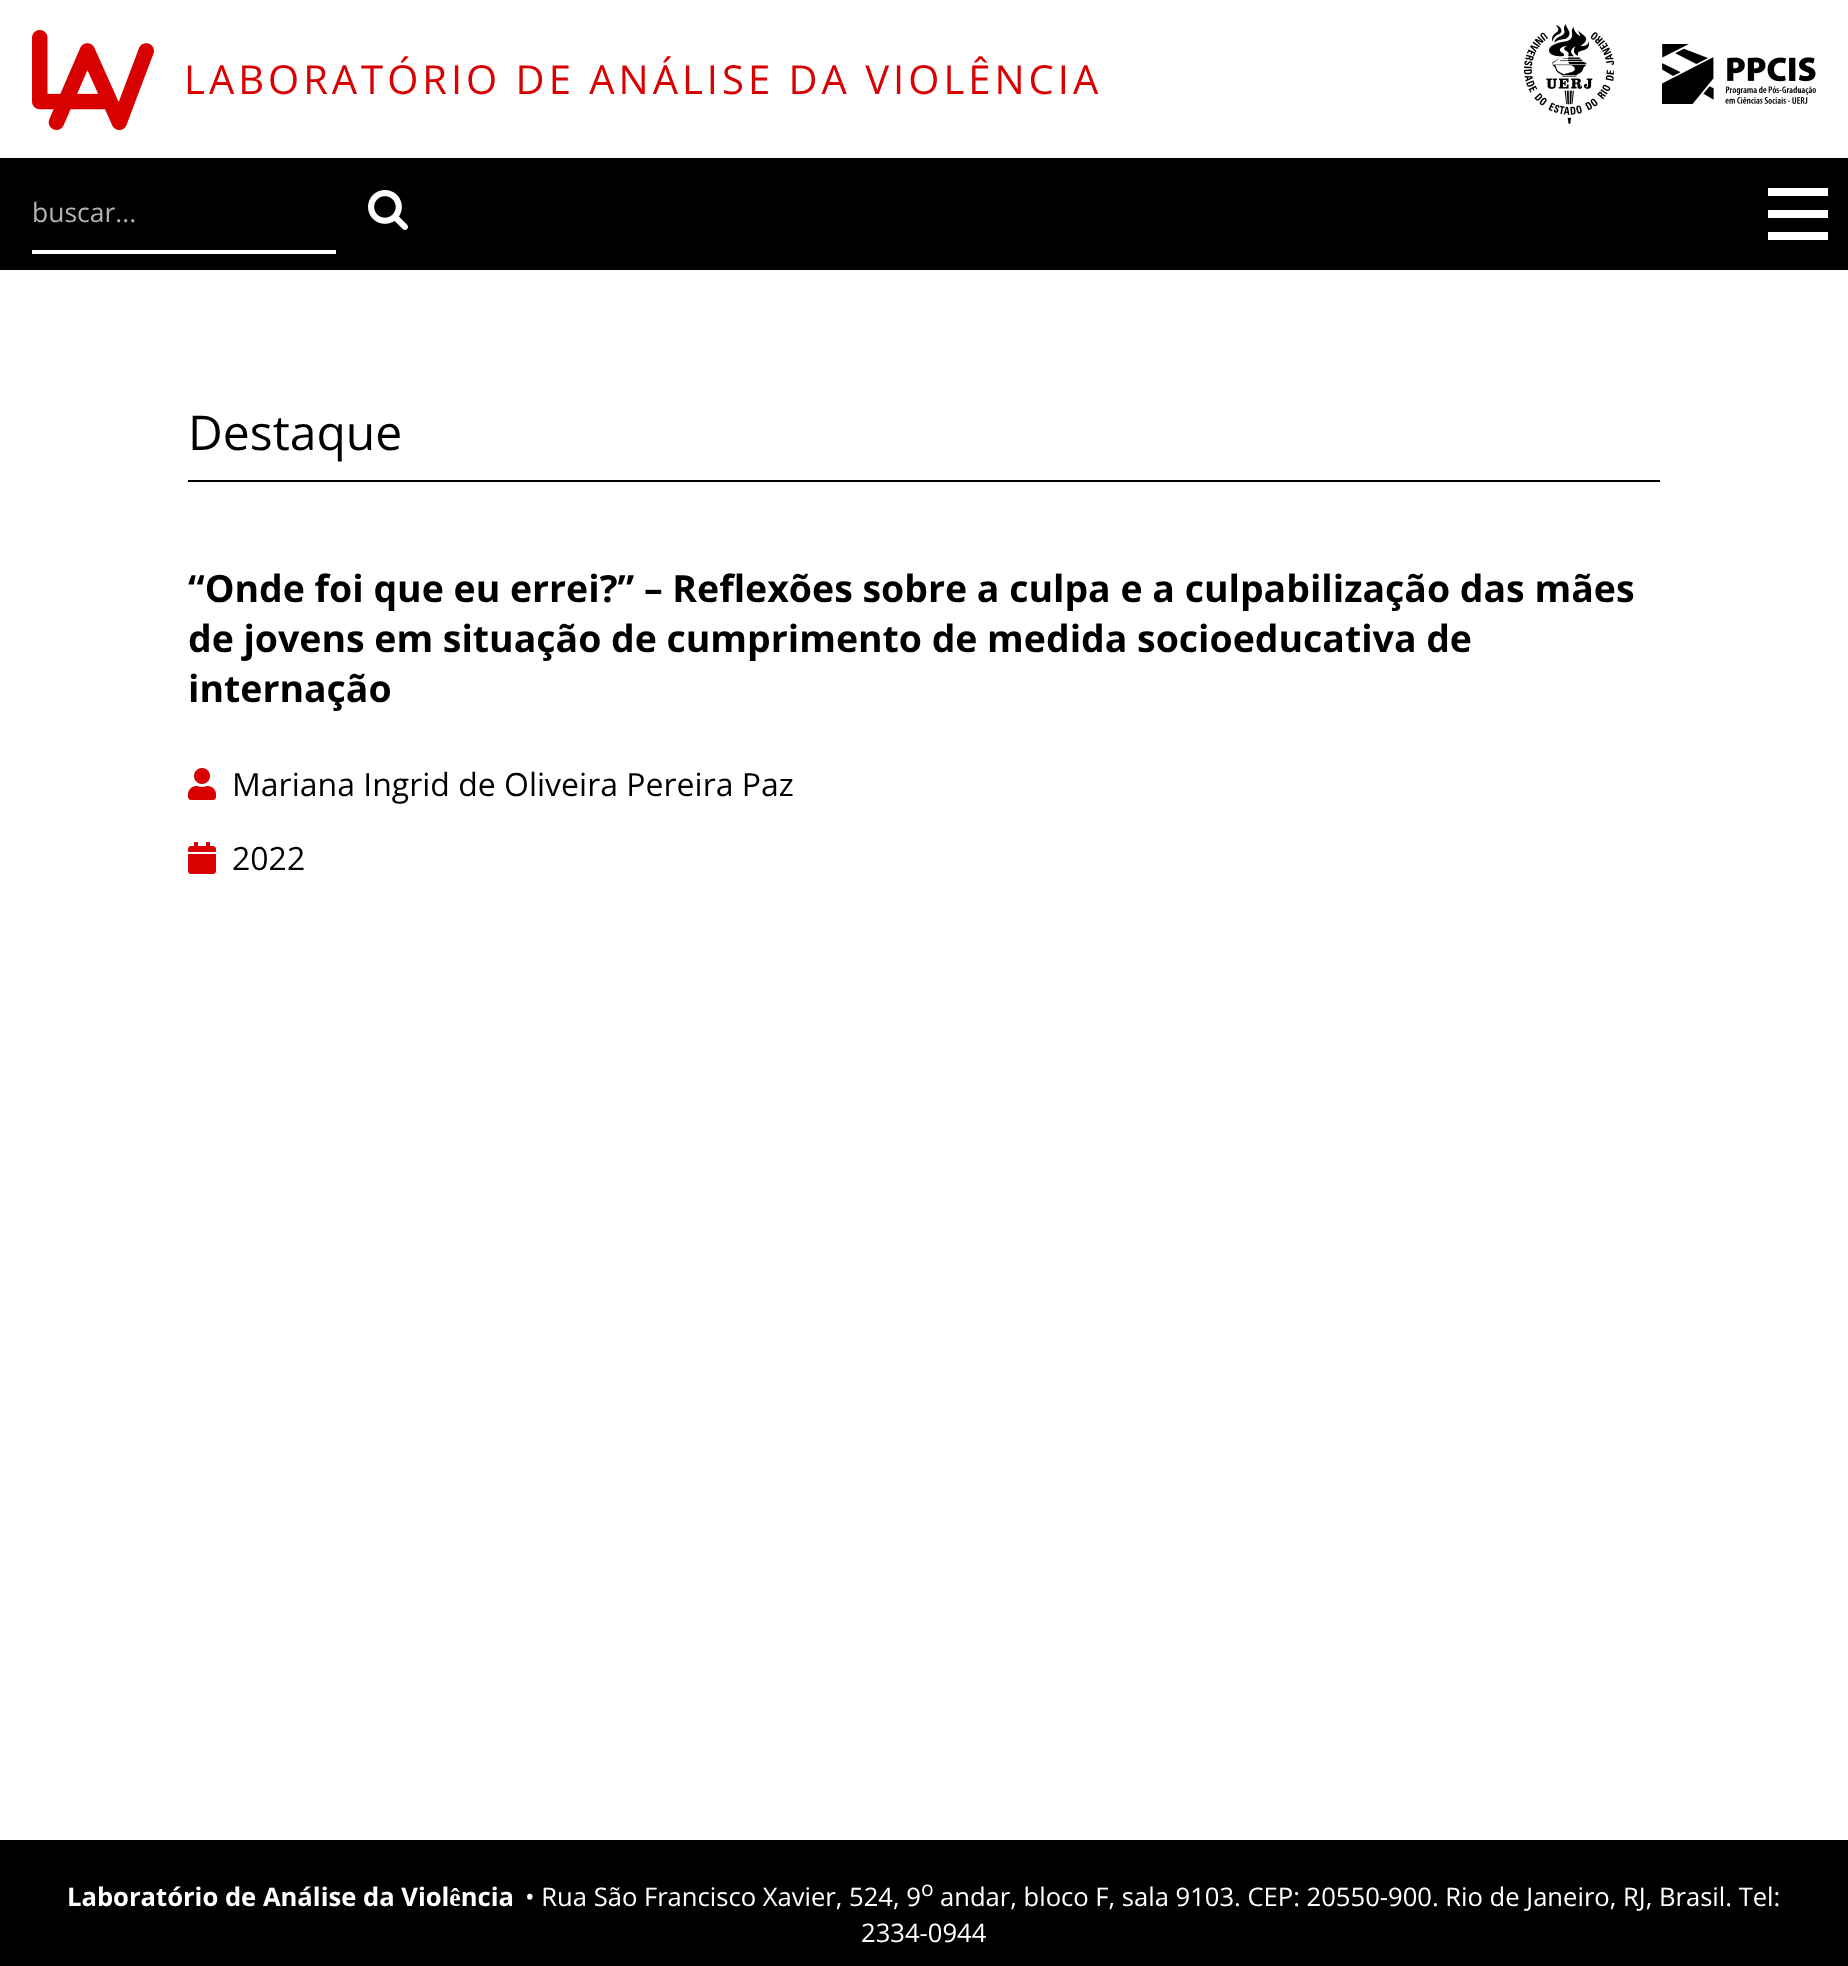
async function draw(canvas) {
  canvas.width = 1848
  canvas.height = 1966
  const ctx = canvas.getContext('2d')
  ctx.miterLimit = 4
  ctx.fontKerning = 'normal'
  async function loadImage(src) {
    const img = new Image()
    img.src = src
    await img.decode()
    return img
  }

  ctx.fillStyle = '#fff'
  ctx.fillRect(0, 0, 1848, 1966)
  ctx.drawImage(await loadImage('image0.png'), 32, 30, 122, 100)
  ctx.letterSpacing = '4px'
  ctx.font = '40px Open Sans'
  ctx.fillStyle = '#d80000'
  ctx.fillText('LABORATÓRIO DE ANÁLISE DA VIOLÊNCIA', 184, 94)
  ctx.drawImage(await loadImage('image1.png'), 1524, 24, 90, 100)
  ctx.drawImage(await loadImage('image2.png'), 1662, 44, 154, 60)
  ctx.fillStyle = '#000'
  ctx.fillRect(0, 158, 1848, 112)
  ctx.fillStyle = '#fff'
  ctx.fillRect(32, 250, 304, 4)
  ctx.letterSpacing = '0px'
  ctx.font = '26.5px Open Sans'
  ctx.fillStyle = '#b3b3b3'
  ctx.fillText('buscar...', 32, 222)
  ctx.drawImage(await loadImage('image3.png'), 368, 190, 40, 40)
  ctx.fillStyle = '#fff'
  ctx.fillRect(1768, 188, 60, 8)
  ctx.fillRect(1768, 210, 60, 8)
  ctx.fillRect(1768, 232, 60, 8)
  ctx.fillStyle = '#000'
  ctx.fillRect(188, 480, 1472, 2)
  ctx.font = '48px Open Sans'
  ctx.fillText('Destaque', 188, 450)
  ctx.font = 'bold 37.45px Open Sans'
  ctx.fillText('“Onde foi que eu errei?” – Reflexões sobre a culpa e a culpabilização das mães', 188, 602)
  ctx.wordSpacing = '-0.1px'
  ctx.fillText('de jovens em situação de cumprimento de medida socioeducativa de', 188, 652)
  ctx.wordSpacing = '0px'
  ctx.fillText('internação', 188, 702)
  ctx.drawImage(await loadImage('image4.png'), 188, 768, 28, 32)
  ctx.font = '32px Open Sans'
  ctx.fillText('Mariana Ingrid de Oliveira Pereira Paz', 232, 796)
  ctx.drawImage(await loadImage('image5.png'), 188, 842, 28, 32)
  ctx.fillText('2022', 232, 870)
  ctx.fillRect(0, 1840, 1848, 126)
  ctx.font = 'bold 25.6px Open Sans'
  ctx.fillStyle = '#fff'
  ctx.fillText('Laboratório de Análise da Violência', 67, 1906)
  ctx.font = '25.6px Open Sans'
  ctx.fillText('• Rua São Francisco Xavier, 524, 9', 525, 1906)
  ctx.font = '21px Open Sans'
  ctx.fillText('o', 921, 1896)
  ctx.font = '25.6px Open Sans'
  ctx.fillText('andar, bloco F, sala 9103. CEP: 20550-900. Rio de Janeiro, RJ, Brasil. Tel:', 940, 1906)
  ctx.fillText('2334-0944', 861, 1942)
}

draw(document.querySelector('canvas'))
